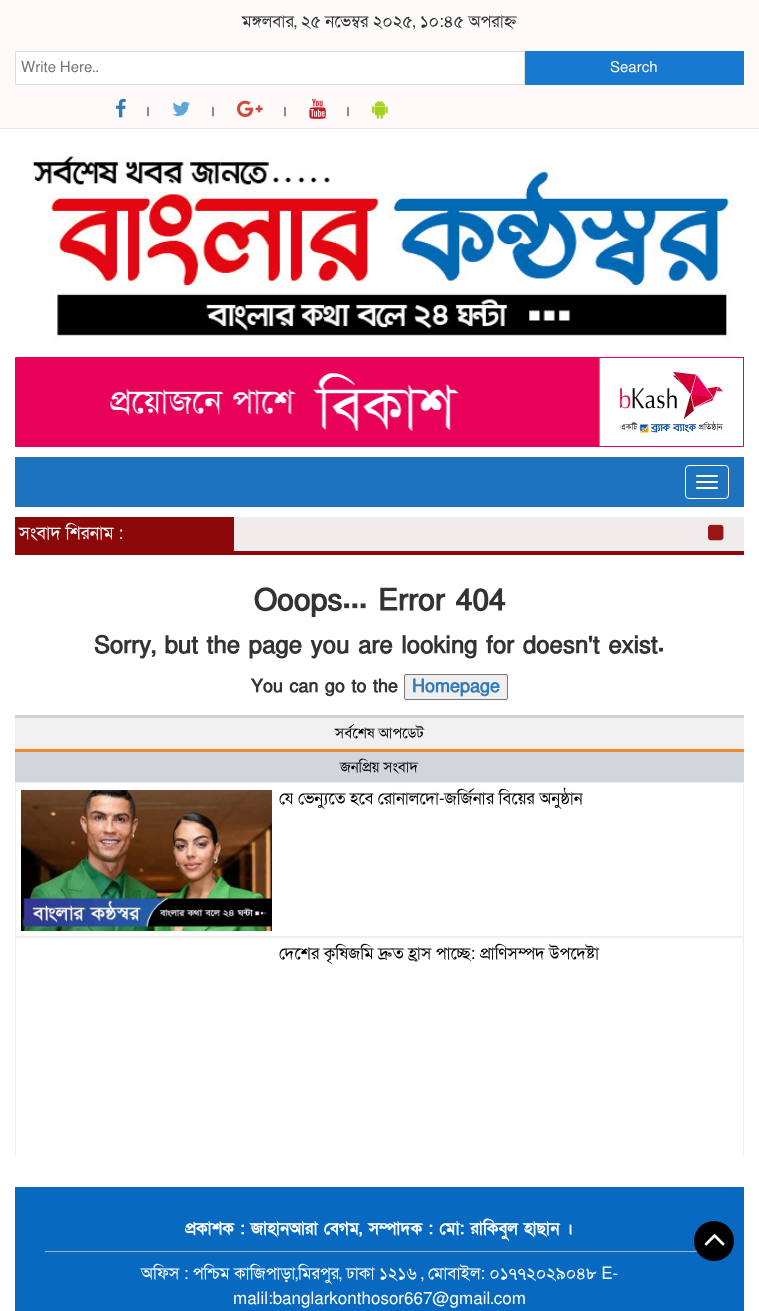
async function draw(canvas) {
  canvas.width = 759
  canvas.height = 1311
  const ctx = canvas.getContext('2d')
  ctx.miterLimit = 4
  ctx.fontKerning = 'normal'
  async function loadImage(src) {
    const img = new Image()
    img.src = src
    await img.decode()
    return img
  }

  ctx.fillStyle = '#fff'
  ctx.fillRect(0, 0, 759, 1311)
  ctx.fillStyle = '#fefafa'
  ctx.fillRect(0, 0, 759, 128)
  ctx.fillStyle = '#e4e4e4'
  ctx.fillRect(0, 128, 759, 1)
  ctx.font = '17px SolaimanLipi'
  ctx.fillStyle = '#333'
  ctx.fillText('মঙ্গলবার, ২৫ নভেম্বর ২০২৫, ১০:৪৫ অপরাহ্ন', 242, 27)
  ctx.fillStyle = '#fff'
  ctx.beginPath()
  ctx.rect(15.5, 51.5, 509, 33)
  ctx.fill()
  ctx.strokeStyle = '#ddd'
  ctx.stroke()
  ctx.font = '15px SolaimanLipi'
  ctx.fillStyle = '#757575'
  ctx.fillText('Write Here..', 21, 72)
  ctx.fillStyle = '#1879d0'
  ctx.fillRect(525, 51, 219, 34)
  ctx.fillStyle = '#fff'
  ctx.fillText('Search', 610, 72)
  ctx.drawImage(await loadImage('image0.png'), 116, 98, 10, 20)
  ctx.font = '17px SolaimanLipi'
  ctx.fillStyle = '#4d0202'
  ctx.fillText('।', 143, 116)
  ctx.drawImage(await loadImage('image1.png'), 172, 101, 18, 15)
  ctx.fillText('।', 208, 116)
  ctx.drawImage(await loadImage('image2.png'), 237, 100, 26, 17)
  ctx.fillText('।', 280, 116)
  ctx.drawImage(await loadImage('image3.png'), 309, 98, 17, 21)
  ctx.fillText('।', 343, 116)
  ctx.drawImage(await loadImage('image4.png'), 372, 100, 16, 19)
  ctx.drawImage(await loadImage('image5.png'), 32, 156, 701, 186)
  ctx.drawImage(await loadImage('image6.png'), 15, 357, 729, 90)
  ctx.fillStyle = '#1e73be'
  ctx.fillRect(15, 457, 729, 50)
  ctx.beginPath()
  ctx.roundRect(685.5, 465.5, 43, 33, 3.5)
  ctx.strokeStyle = '#fff'
  ctx.stroke()
  ctx.fillStyle = '#fff'
  ctx.beginPath()
  ctx.roundRect(696, 475, 22, 2, 1)
  ctx.fill()
  ctx.beginPath()
  ctx.roundRect(696, 481, 22, 2, 1)
  ctx.fill()
  ctx.beginPath()
  ctx.roundRect(696, 487, 22, 2, 1)
  ctx.fill()
  ctx.fillStyle = '#8b0708'
  ctx.fillRect(15, 517, 219, 38)
  ctx.font = '18px SolaimanLipi'
  ctx.fillStyle = '#fff'
  ctx.fillText('সংবাদ শিরনাম :', 19, 539)
  ctx.fillStyle = '#f0ecec'
  ctx.fillRect(234, 517, 510, 34)
  ctx.fillStyle = '#8b0708'
  ctx.fillRect(234, 551, 510, 4)
  ctx.drawImage(await loadImage('image7.png'), 708, 524, 16, 17)
  ctx.font = 'bold 30px SolaimanLipi'
  ctx.fillStyle = '#333'
  ctx.fillText('Ooops... Error 404', 254, 610)
  ctx.font = 'bold 24px SolaimanLipi'
  ctx.fillText('Sorry, but the page you are looking for doesn\'t exist.', 94, 653)
  ctx.font = 'bold 18px SolaimanLipi'
  ctx.fillText('You can go to the', 251, 692)
  ctx.fillStyle = '#efefef'
  ctx.beginPath()
  ctx.roundRect(404.5, 674.5, 103, 25, 1.5)
  ctx.fill()
  ctx.strokeStyle = '#767676'
  ctx.stroke()
  ctx.fillStyle = '#337ab7'
  ctx.fillText('Homepage', 412, 692)
  ctx.fillStyle = '#d2d5db'
  ctx.fillRect(15, 752, 729, 30)
  ctx.fillStyle = '#f0f0f0'
  ctx.fillRect(15, 718, 729, 31)
  ctx.fillStyle = '#d2d2d2'
  ctx.fillRect(15, 715, 729, 3)
  ctx.font = '15px SolaimanLipi'
  ctx.fillStyle = '#000'
  ctx.fillText('সর্বশেষ আপডেট', 335, 738)
  ctx.fillStyle = '#f28a2d'
  ctx.fillRect(15, 749, 729, 3)
  ctx.fillStyle = '#000'
  ctx.fillText('জনপ্রিয় সংবাদ', 340, 772)
  ctx.strokeStyle = '#f0eeee'
  ctx.strokeRect(15.5, 782.5, 728, 154)
  ctx.drawImage(await loadImage('image8.png'), 21, 790, 251, 141)
  ctx.font = '17px SolaimanLipi'
  ctx.fillText('যে ভেন্যুতে হবে রোনালদো-জর্জিনার বিয়ের অনুষ্ঠান', 279, 804)
  ctx.fillStyle = '#0769bf'
  ctx.fillRect(15, 1187, 729, 124)
  ctx.save()
  ctx.beginPath()
  ctx.rect(15, 782, 729, 375)
  ctx.clip()
  ctx.strokeRect(15.5, 937.5, 728, 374)
  ctx.restore()
  ctx.fillStyle = '#000'
  ctx.fillText('দেশের কৃষিজমি দ্রুত হ্রাস পাচ্ছে: প্রাণিসম্পদ উপদেষ্টা', 279, 959)
  ctx.font = 'bold 17px SolaimanLipi'
  ctx.fillStyle = '#fff'
  ctx.fillText('প্রকাশক : জাহানআরা বেগম, সম্পাদক : মো: রাকিবুল হাছান ।', 185, 1234)
  ctx.fillStyle = '#abb1ba'
  ctx.fillRect(45, 1251, 653, 1)
  ctx.font = '17px SolaimanLipi'
  ctx.fillStyle = '#fff'
  ctx.fillText('অফিস : পশ্চিম কাজিপাড়া,মিরপুর, ঢাকা ১২১৬ , মোবাইল: ০১৭৭২০২৯০৪৮ E-', 141, 1279)
  ctx.fillText('malil:banglarkonthosor667@gmail.com', 233, 1304)
  ctx.fillStyle = '#000'
  ctx.beginPath()
  ctx.arc(714, 1241, 20, 0, 2 * Math.PI)
  ctx.fill()
  ctx.drawImage(await loadImage('image9.png'), 704, 1234, 21, 12)
}

draw(document.querySelector('canvas'))
